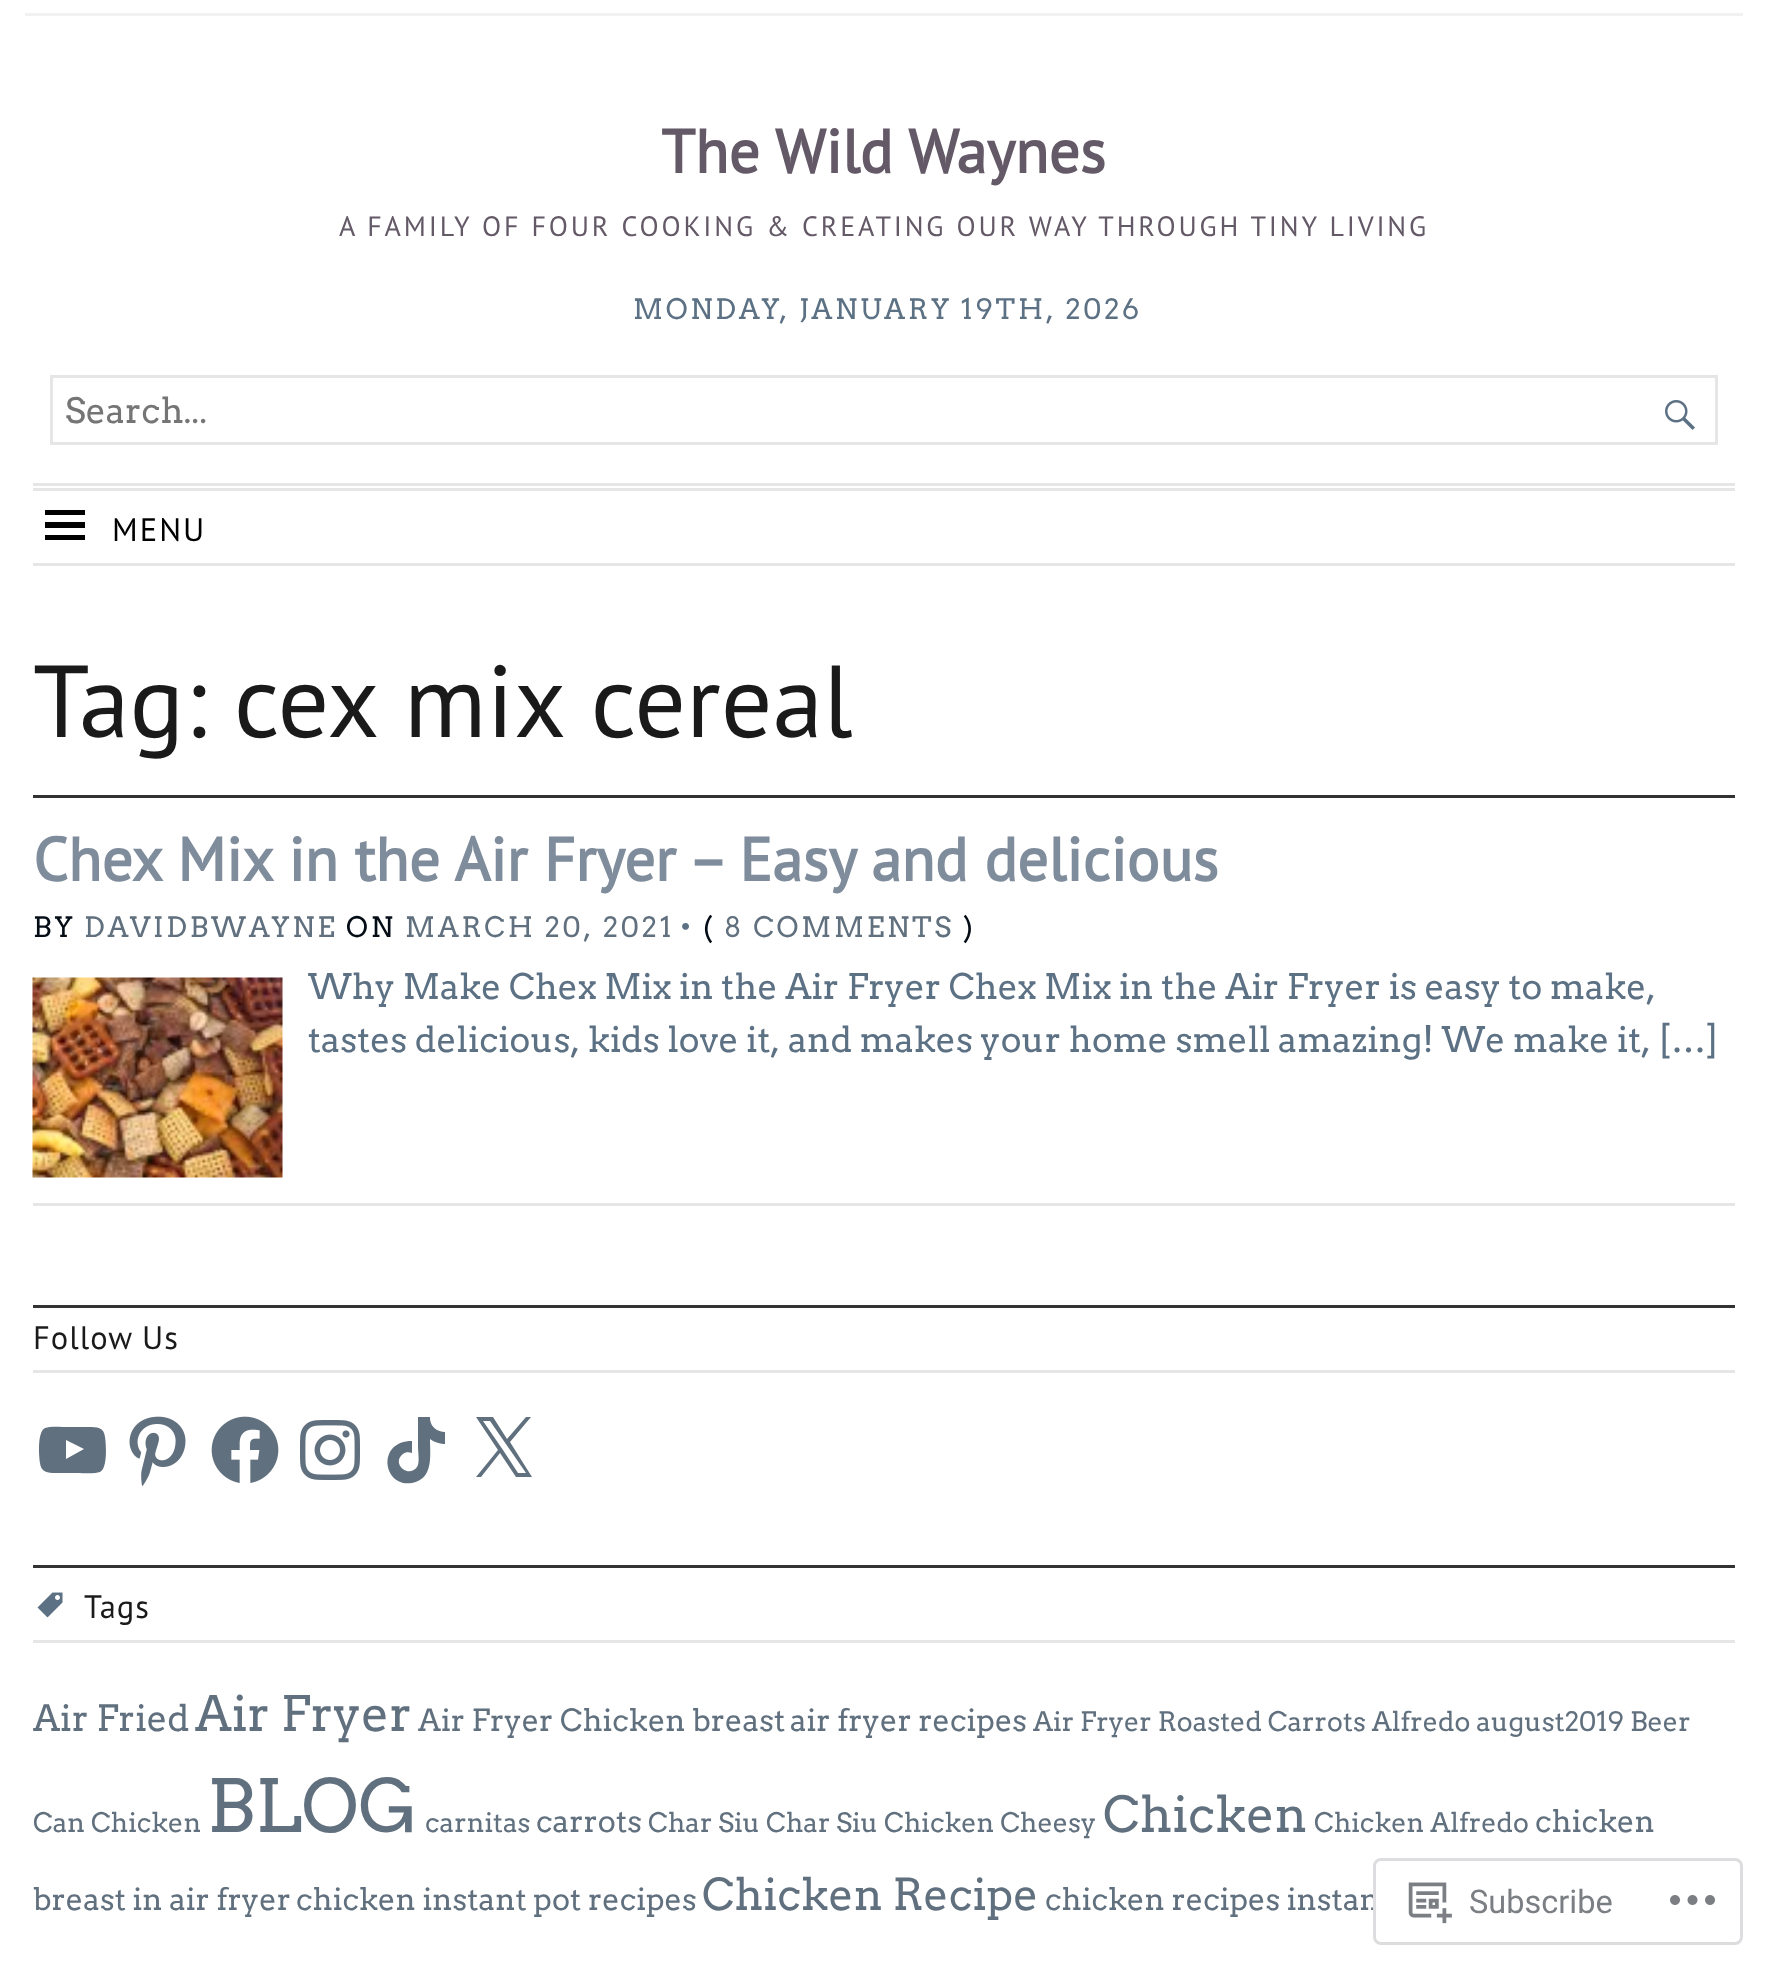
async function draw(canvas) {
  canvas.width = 1767
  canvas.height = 1968
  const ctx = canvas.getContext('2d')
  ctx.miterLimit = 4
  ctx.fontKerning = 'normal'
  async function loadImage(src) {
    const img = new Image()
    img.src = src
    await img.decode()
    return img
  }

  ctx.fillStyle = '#fff'
  ctx.fillRect(0, 0, 1767, 1968)
  ctx.fillStyle = '#f2f2f2'
  ctx.fillRect(25, 13, 1718, 3)
  ctx.font = 'bold 61.25px PT Sans'
  ctx.fillStyle = '#645967'
  ctx.fillText('The Wild Waynes', 661, 173)
  ctx.letterSpacing = '2.8px'
  ctx.font = '28px PT Sans'
  ctx.fillText('A FAMILY OF FOUR COOKING & CREATING OUR WAY THROUGH TINY LIVING', 339, 236)
  ctx.font = '28px Arvo'
  ctx.fillStyle = '#5c7184'
  ctx.fillText('MONDAY, JANUARY 19TH, 2026', 633, 319)
  ctx.strokeStyle = '#e6e6e6'
  ctx.lineWidth = 3
  ctx.strokeRect(51.5, 376.5, 1665, 67)
  ctx.letterSpacing = '0px'
  ctx.font = '35px Arvo'
  ctx.fillStyle = '#757575'
  ctx.fillText('Search...', 65, 423)
  ctx.drawImage(await loadImage('image0.png'), 1665, 400, 30, 30)
  ctx.fillStyle = '#e6e6e6'
  ctx.fillRect(33, 483, 1702, 3)
  ctx.fillRect(33, 488, 1702, 3)
  ctx.fillRect(33, 563, 1702, 3)
  ctx.fillStyle = '#000'
  ctx.beginPath()
  ctx.moveTo(45, 540)
  ctx.lineTo(45, 535)
  ctx.lineTo(85, 535)
  ctx.lineTo(85, 540)
  ctx.closePath()
  ctx.moveTo(45, 510)
  ctx.lineTo(85, 510)
  ctx.lineTo(85, 515)
  ctx.lineTo(45, 515)
  ctx.closePath()
  ctx.moveTo(45, 528)
  ctx.lineTo(45, 522)
  ctx.lineTo(85, 522)
  ctx.lineTo(85, 528)
  ctx.closePath()
  ctx.fill()
  ctx.letterSpacing = '2px'
  ctx.font = '32.5px PT Sans'
  ctx.fillText('MENU', 112, 541)
  ctx.letterSpacing = '0px'
  ctx.font = '102px PT Sans'
  ctx.fillStyle = '#1a1a1a'
  ctx.fillText('Tag: cex mix cereal', 33, 737)
  ctx.fillStyle = '#333'
  ctx.fillRect(33, 795, 1702, 3)
  ctx.fillStyle = '#e6e6e6'
  ctx.fillRect(33, 1203, 1702, 3)
  ctx.font = 'bold 61.25px PT Sans'
  ctx.fillStyle = '#7f8c9c'
  ctx.fillText('Chex Mix in the Air Fryer – Easy and delicious', 33, 881)
  ctx.letterSpacing = '2.8px'
  ctx.font = '28px Arvo'
  ctx.fillStyle = '#040d16'
  ctx.fillText('BY', 33, 937)
  ctx.fillStyle = '#61707e'
  ctx.fillText('DAVIDBWAYNE', 84, 937)
  ctx.fillStyle = '#040d16'
  ctx.fillText('ON', 346, 937)
  ctx.fillStyle = '#61707e'
  ctx.fillText('MARCH 20, 2021', 405, 937)
  ctx.fillStyle = '#5c7184'
  ctx.fillText('•', 680, 937)
  ctx.fillStyle = '#040d16'
  ctx.fillText('(', 703, 937)
  ctx.fillStyle = '#61707e'
  ctx.fillText('8 COMMENTS', 724, 937)
  ctx.fillStyle = '#040d16'
  ctx.fillText(')', 963, 937)
  ctx.drawImage(await loadImage('image1.png'), 32, 977, 251, 201)
  ctx.letterSpacing = '0px'
  ctx.font = '35px Arvo'
  ctx.fillStyle = '#5c7184'
  ctx.fillText('Why Make Chex Mix in the Air Fryer Chex Mix in the Air Fryer is easy to make,', 308, 999)
  ctx.fillText('tastes delicious, kids love it, and makes your home smell amazing! We make it, […]', 308, 1052)
  ctx.fillStyle = '#333'
  ctx.fillRect(33, 1305, 1702, 3)
  ctx.fillStyle = '#e6e6e6'
  ctx.fillRect(33, 1370, 1702, 3)
  ctx.letterSpacing = '1px'
  ctx.font = '32.5px PT Sans'
  ctx.fillStyle = '#1a1a1a'
  ctx.fillText('Follow Us', 33, 1349)
  ctx.fillStyle = '#61707e'
  ctx.beginPath()
  ctx.moveTo(105, 1437)
  ctx.bezierCurveTo(104, 1427, 97, 1427, 88, 1427)
  ctx.lineTo(68, 1427)
  ctx.bezierCurveTo(62, 1427, 50, 1426, 45, 1428)
  ctx.bezierCurveTo(37, 1432, 39, 1456, 40, 1463)
  ctx.bezierCurveTo(41, 1474, 51, 1473, 59, 1473)
  ctx.lineTo(77, 1473)
  ctx.bezierCurveTo(83, 1473, 95, 1474, 100, 1472)
  ctx.bezierCurveTo(108, 1468, 106, 1444, 105, 1437)
  ctx.closePath()
  ctx.moveTo(66, 1459)
  ctx.lineTo(66, 1440)
  ctx.lineTo(84, 1449)
  ctx.closePath()
  ctx.fill()
  ctx.drawImage(await loadImage('image2.png'), 129, 1416, 57, 70)
  ctx.drawImage(await loadImage('image3.png'), 211, 1416, 68, 67)
  ctx.drawImage(await loadImage('image4.png'), 300, 1420, 60, 60)
  ctx.beginPath()
  ctx.moveTo(418, 1417)
  ctx.lineTo(430, 1417)
  ctx.bezierCurveTo(430, 1417, 429, 1431, 445, 1432)
  ctx.lineTo(445, 1444)
  ctx.bezierCurveTo(445, 1444, 437, 1444, 430, 1439)
  ctx.bezierCurveTo(430, 1455, 434, 1479, 412, 1483)
  ctx.bezierCurveTo(383, 1488, 376, 1441, 412, 1441)
  ctx.lineTo(412, 1453)
  ctx.bezierCurveTo(409, 1452, 405, 1452, 403, 1454)
  ctx.bezierCurveTo(391, 1463, 408, 1479, 417, 1467)
  ctx.bezierCurveTo(420, 1463, 418, 1452, 418, 1447)
  ctx.closePath()
  ctx.fill()
  ctx.beginPath()
  ctx.moveTo(510, 1442)
  ctx.lineTo(531, 1417)
  ctx.lineTo(526, 1417)
  ctx.lineTo(507, 1439)
  ctx.lineTo(493, 1417)
  ctx.lineTo(476, 1417)
  ctx.lineTo(498, 1450)
  ctx.lineTo(476, 1477)
  ctx.lineTo(481, 1477)
  ctx.lineTo(500, 1453)
  ctx.lineTo(516, 1477)
  ctx.lineTo(532, 1477)
  ctx.closePath()
  ctx.moveTo(503, 1450)
  ctx.lineTo(483, 1421)
  ctx.lineTo(490, 1421)
  ctx.lineTo(526, 1473)
  ctx.lineTo(518, 1473)
  ctx.closePath()
  ctx.fill()
  ctx.fillStyle = '#333'
  ctx.fillRect(33, 1565, 1702, 3)
  ctx.fillStyle = '#e6e6e6'
  ctx.fillRect(33, 1640, 1702, 3)
  ctx.drawImage(await loadImage('image5.png'), 37, 1592, 26, 26)
  ctx.fillStyle = '#1a1a1a'
  ctx.fillText('Tags', 84, 1618)
  ctx.letterSpacing = '0px'
  ctx.font = '36px Arvo'
  ctx.fillStyle = '#61707e'
  ctx.fillText('Air Fried', 33, 1731)
  ctx.font = '48.75px Arvo'
  ctx.fillText('Air Fryer', 195, 1731)
  ctx.font = '30.4px Arvo'
  ctx.fillText('Air Fryer Chicken breast', 418, 1731)
  ctx.fillText('air fryer recipes', 790, 1731)
  ctx.font = '26.7px Arvo'
  ctx.fillText('Air Fryer Roasted Carrots Alfredo august2019 Beer', 1033, 1731)
  ctx.fillText('Can Chicken', 33, 1832)
  ctx.font = '73px Arvo'
  ctx.fillText('BLOG', 207, 1832)
  ctx.font = '26.7px Arvo'
  ctx.fillText('carnitas', 425, 1832)
  ctx.font = '30.4px Arvo'
  ctx.fillText('carrots', 536, 1832)
  ctx.font = '26.7px Arvo'
  ctx.fillText('Char Siu Char Siu Chicken Cheesy', 648, 1832)
  ctx.font = '49.5px Arvo'
  ctx.fillText('Chicken', 1103, 1832)
  ctx.font = '26.7px Arvo'
  ctx.fillText('Chicken Alfredo', 1314, 1832)
  ctx.font = '30.4px Arvo'
  ctx.fillText('chicken', 1535, 1832)
  ctx.fillText('breast in air fryer', 33, 1910)
  ctx.fillText('chicken instant pot recipes', 296, 1910)
  ctx.font = '43.75px Arvo'
  ctx.fillText('Chicken Recipe', 702, 1910)
  ctx.font = '30.4px Arvo'
  ctx.fillText('chicken recipes instan', 1045, 1910)
  ctx.fillStyle = '#fffffffa'
  ctx.beginPath()
  ctx.roundRect(1373, 1858, 370, 87, 8)
  ctx.fill()
  ctx.beginPath()
  ctx.roundRect(1374.5, 1859.5, 367, 84, 6.5)
  ctx.strokeStyle = '#dcdcdefa'
  ctx.stroke()
  ctx.drawImage(await loadImage('image6.png'), 1408, 1882, 44, 42)
  ctx.font = '32.5px Roboto'
  ctx.fillStyle = '#7b7f84'
  ctx.fillText('Subscribe', 1469, 1913)
  ctx.drawImage(await loadImage('image7.png'), 1670, 1895, 45, 10)
}

draw(document.querySelector('canvas'))
